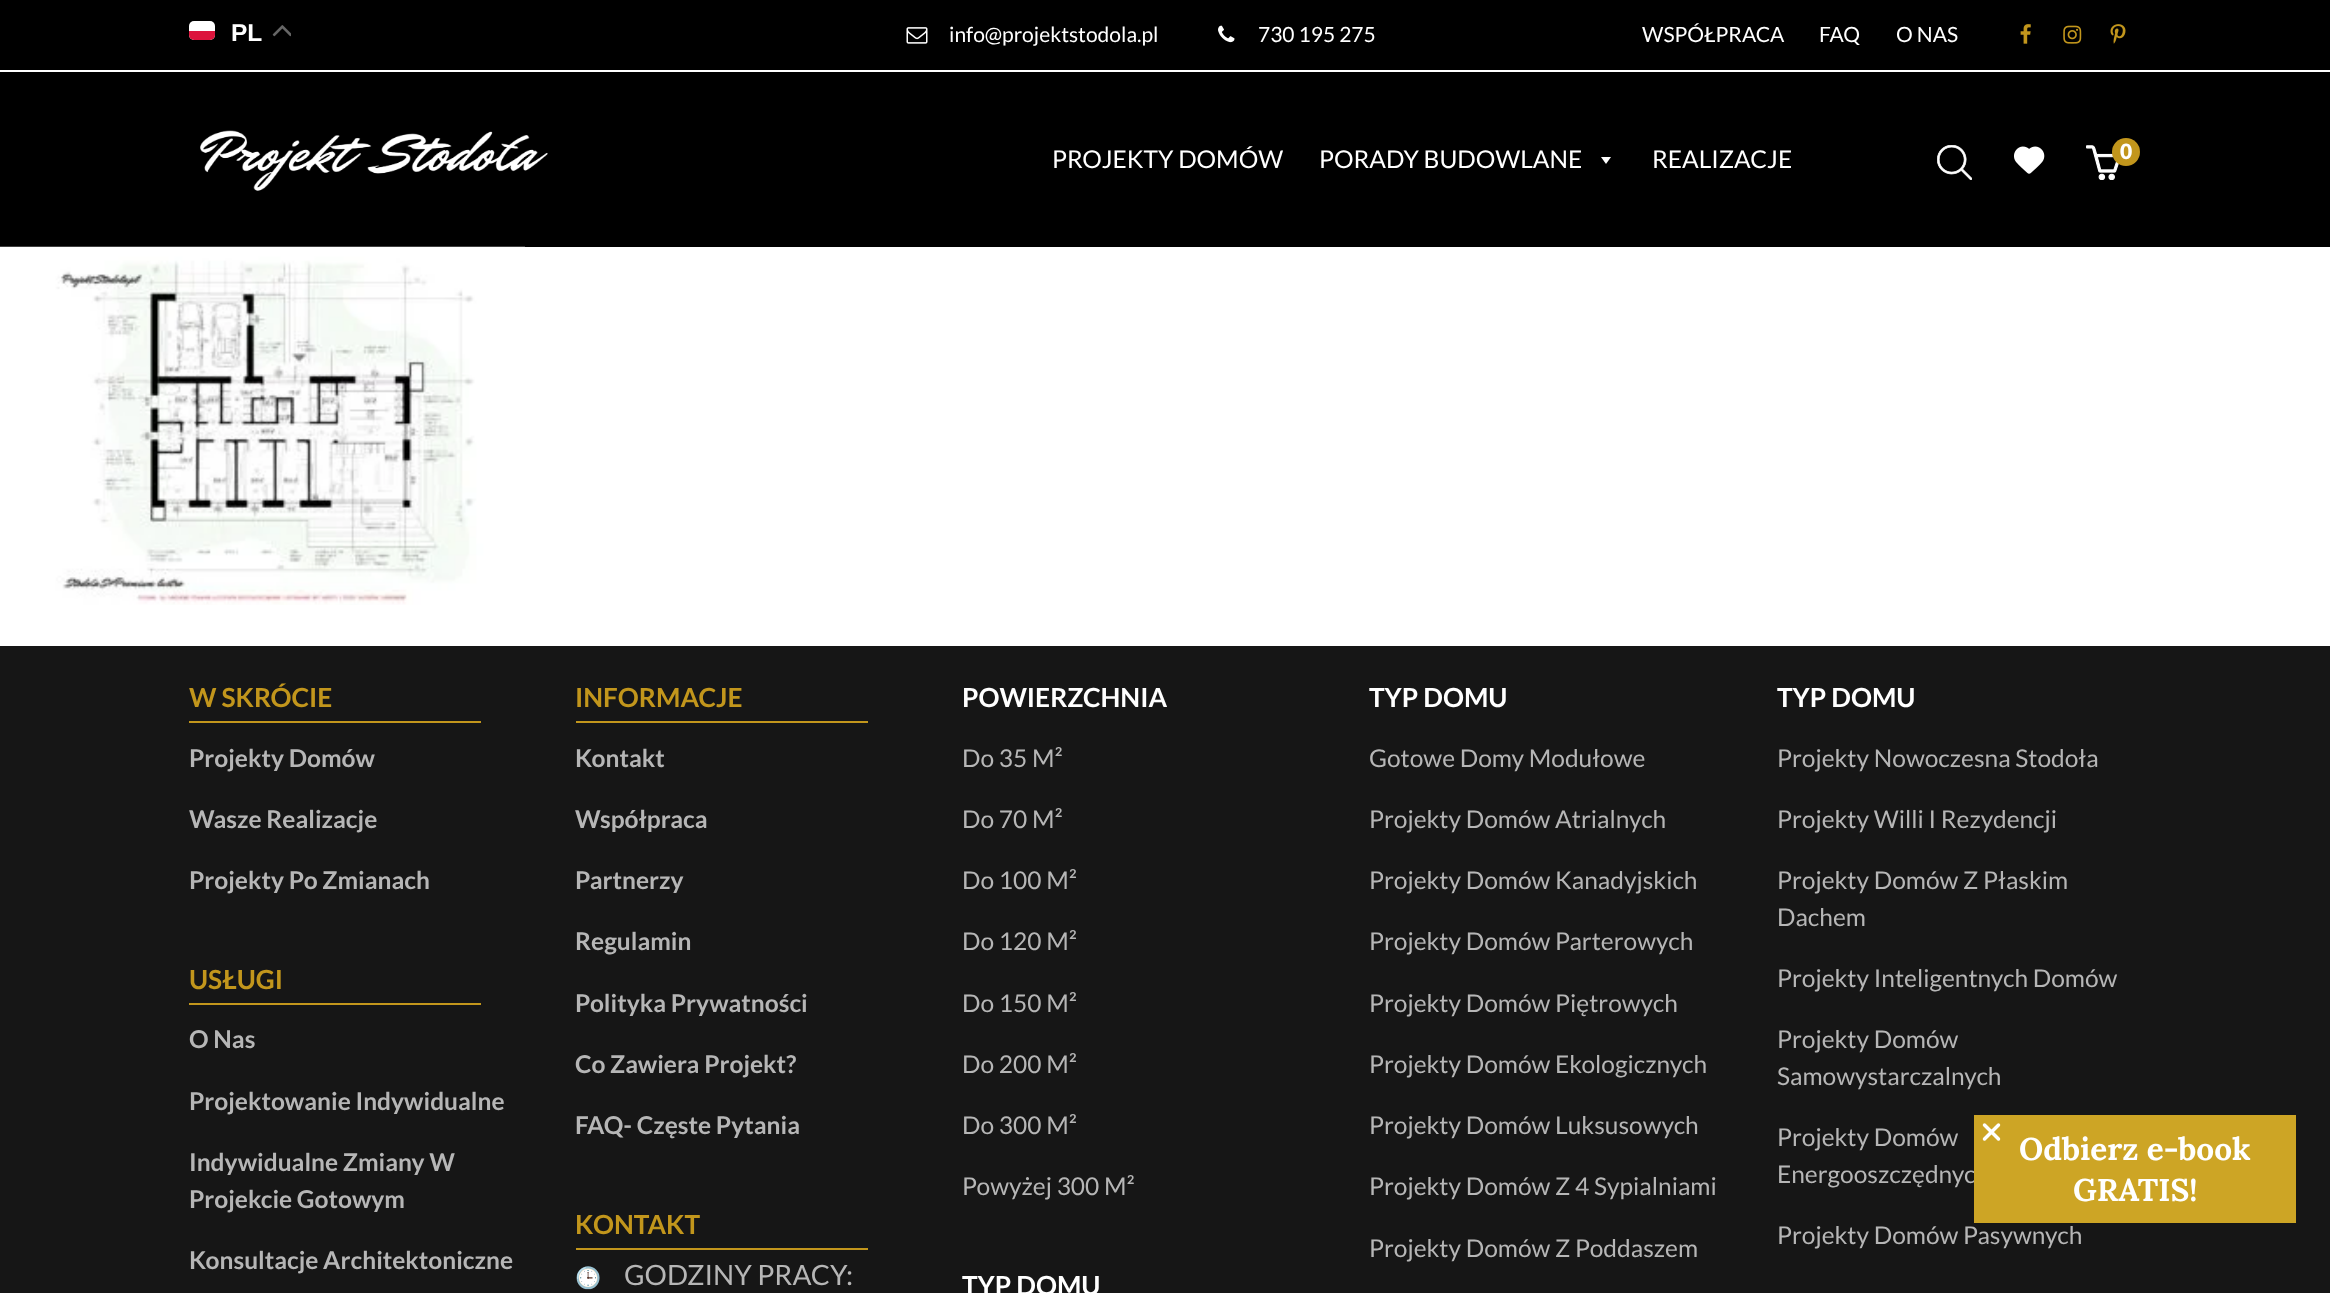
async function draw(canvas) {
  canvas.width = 2330
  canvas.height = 1293
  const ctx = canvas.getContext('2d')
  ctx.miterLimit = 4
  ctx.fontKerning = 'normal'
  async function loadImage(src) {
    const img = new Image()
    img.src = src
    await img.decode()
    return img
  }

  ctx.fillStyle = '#fff'
  ctx.fillRect(0, 0, 2330, 1293)
  ctx.fillStyle = '#000'
  ctx.fillRect(0, 0, 2330, 70)
  ctx.fillStyle = '#fff'
  ctx.beginPath()
  ctx.roundRect(189, 21, 26, 19, 5)
  ctx.fill()
  ctx.fillStyle = '#dc143c'
  ctx.beginPath()
  ctx.roundRect(189, 31, 26, 9, [0, 0, 5, 5])
  ctx.fill()
  ctx.font = 'bold 24.5px Liberation Sans'
  ctx.fillStyle = '#fff'
  ctx.fillText('PL', 231, 41)
  ctx.drawImage(await loadImage('image0.png'), 272, 25, 19, 12)
  ctx.drawImage(await loadImage('image1.png'), 906, 27, 22, 17)
  ctx.font = '21px Lato'
  ctx.fillText('info@projektstodola.pl', 949, 42)
  ctx.drawImage(await loadImage('image2.png'), 1218, 25, 17, 18)
  ctx.fillText('730 195 275', 1258, 42)
  ctx.fillText('WSPÓŁPRACA', 1642, 42)
  ctx.fillText('FAQ', 1819, 42)
  ctx.fillText('O NAS', 1896, 42)
  ctx.drawImage(await loadImage('image3.png'), 2020, 24, 11, 20)
  ctx.drawImage(await loadImage('image4.png'), 2063, 25, 19, 19)
  ctx.drawImage(await loadImage('image5.png'), 2110, 24, 16, 20)
  ctx.fillStyle = '#000'
  ctx.fillRect(0, 72, 2330, 175)
  ctx.drawImage(await loadImage('image6.png'), 200, 130, 348, 61)
  ctx.font = '24.5px Lato'
  ctx.fillStyle = '#fff'
  ctx.fillText('PROJEKTY DOMÓW', 1052, 168)
  ctx.fillText('PORADY BUDOWLANE', 1319, 168)
  ctx.beginPath()
  ctx.moveTo(1611, 157)
  ctx.lineTo(1606, 164)
  ctx.lineTo(1601, 157)
  ctx.closePath()
  ctx.fill()
  ctx.fillText('REALIZACJE', 1652, 168)
  ctx.drawImage(await loadImage('image7.png'), 1937, 145, 35, 35)
  ctx.drawImage(await loadImage('image8.png'), 2014, 146, 31, 28)
  ctx.drawImage(await loadImage('image9.png'), 2086, 145, 33, 35)
  ctx.fillStyle = '#c2961c'
  ctx.beginPath()
  ctx.arc(2126, 152, 14, 0, 2 * Math.PI)
  ctx.fill()
  ctx.font = '900 21px Lato'
  ctx.fillStyle = '#fff'
  ctx.fillText('0', 2120, 159)
  ctx.drawImage(await loadImage('image10.png'), 0, 246, 525, 359)
  ctx.fillStyle = '#161616'
  ctx.fillRect(0, 646, 2330, 647)
  ctx.font = 'bold 26.25px Lato'
  ctx.fillStyle = '#c2961c'
  ctx.fillText('W SKRÓCIE', 189, 707)
  ctx.fillRect(189, 721, 292, 2)
  ctx.font = 'bold 24.5px Lato'
  ctx.fillStyle = '#b6b6b6'
  ctx.fillText('Projekty Domów', 189, 767)
  ctx.fillText('Wasze Realizacje', 189, 828)
  ctx.fillText('Projekty Po Zmianach', 189, 889)
  ctx.font = 'bold 26.25px Lato'
  ctx.fillStyle = '#c2961c'
  ctx.fillText('USŁUGI', 189, 989)
  ctx.fillRect(189, 1003, 292, 2)
  ctx.font = 'bold 24.5px Lato'
  ctx.fillStyle = '#b6b6b6'
  ctx.fillText('O Nas', 189, 1048)
  ctx.fillText('Projektowanie Indywidualne', 189, 1110)
  ctx.fillText('Indywidualne Zmiany W', 189, 1171)
  ctx.fillText('Projekcie Gotowym', 189, 1208)
  ctx.fillText('Konsultacje Architektoniczne', 189, 1269)
  ctx.font = 'bold 26.25px Lato'
  ctx.fillStyle = '#c2961c'
  ctx.fillText('INFORMACJE', 575, 707)
  ctx.fillRect(576, 721, 292, 2)
  ctx.font = 'bold 24.5px Lato'
  ctx.fillStyle = '#b6b6b6'
  ctx.fillText('Kontakt', 575, 767)
  ctx.fillText('Współpraca', 575, 828)
  ctx.fillText('Partnerzy', 575, 889)
  ctx.fillText('Regulamin', 575, 950)
  ctx.fillText('Polityka Prywatności', 575, 1012)
  ctx.fillText('Co Zawiera Projekt?', 575, 1073)
  ctx.fillText('FAQ- Częste Pytania', 575, 1134)
  ctx.font = 'bold 26.25px Lato'
  ctx.fillStyle = '#c2961c'
  ctx.fillText('KONTAKT', 575, 1234)
  ctx.fillRect(576, 1248, 292, 2)
  ctx.font = '21px Noto Color Emoji'
  ctx.fillStyle = '#b6b6b6'
  ctx.fillText('🕒', 575, 1285)
  ctx.font = '28px Lato'
  ctx.fillText('GODZINY PRACY:', 624, 1285)
  ctx.font = 'bold 26.25px Lato'
  ctx.fillStyle = '#fff'
  ctx.fillText('POWIERZCHNIA', 962, 707)
  ctx.font = '24.5px Lato'
  ctx.fillStyle = '#b6b6b6'
  ctx.fillText('Do 35 M²', 962, 767)
  ctx.fillText('Do 70 M²', 962, 828)
  ctx.fillText('Do 100 M²', 962, 889)
  ctx.fillText('Do 120 M²', 962, 950)
  ctx.fillText('Do 150 M²', 962, 1012)
  ctx.fillText('Do 200 M²', 962, 1073)
  ctx.fillText('Do 300 M²', 962, 1134)
  ctx.fillText('Powyżej 300 M²', 962, 1195)
  ctx.font = 'bold 26.25px Lato'
  ctx.fillStyle = '#fff'
  ctx.fillText('TYP DOMU', 962, 1295)
  ctx.fillText('TYP DOMU', 1369, 707)
  ctx.font = '24.5px Lato'
  ctx.fillStyle = '#b6b6b6'
  ctx.fillText('Gotowe Domy Modułowe', 1369, 767)
  ctx.fillText('Projekty Domów Atrialnych', 1369, 828)
  ctx.fillText('Projekty Domów Kanadyjskich', 1369, 889)
  ctx.fillText('Projekty Domów Parterowych', 1369, 950)
  ctx.fillText('Projekty Domów Piętrowych', 1369, 1012)
  ctx.fillText('Projekty Domów Ekologicznych', 1369, 1073)
  ctx.fillText('Projekty Domów Luksusowych', 1369, 1134)
  ctx.fillText('Projekty Domów Z 4 Sypialniami', 1369, 1195)
  ctx.fillText('Projekty Domów Z Poddaszem', 1369, 1257)
  ctx.font = 'bold 26.25px Lato'
  ctx.fillStyle = '#fff'
  ctx.fillText('TYP DOMU', 1777, 707)
  ctx.font = '24.5px Lato'
  ctx.fillStyle = '#b6b6b6'
  ctx.fillText('Projekty Nowoczesna Stodoła', 1777, 767)
  ctx.fillText('Projekty Willi I Rezydencji', 1777, 828)
  ctx.fillText('Projekty Domów Z Płaskim', 1777, 889)
  ctx.fillText('Dachem', 1777, 926)
  ctx.fillText('Projekty Inteligentnych Domów', 1777, 987)
  ctx.fillText('Projekty Domów', 1777, 1048)
  ctx.fillText('Samowystarczalnych', 1777, 1085)
  ctx.fillText('Projekty Domów', 1777, 1146)
  ctx.fillText('Energooszczędnyc', 1777, 1183)
  ctx.fillText('Projekty Domów Pasywnych', 1777, 1244)
  ctx.fillStyle = '#cda525'
  ctx.fillRect(1974, 1115, 322, 108)
  ctx.beginPath()
  ctx.moveTo(1984.5, 1125)
  ctx.lineTo(1998.5, 1139)
  ctx.moveTo(1984.5, 1139)
  ctx.lineTo(1998.5, 1125)
  ctx.closePath()
  ctx.strokeStyle = '#fff'
  ctx.lineWidth = 3.5
  ctx.lineCap = 'round'
  ctx.lineJoin = 'round'
  ctx.stroke()
  ctx.font = 'bold 31.5px Lora'
  ctx.fillStyle = '#fff'
  ctx.fillText('Odbierz e-book', 2019, 1160)
  ctx.fillText('GRATIS!', 2073, 1201)
}

draw(document.querySelector('canvas'))
